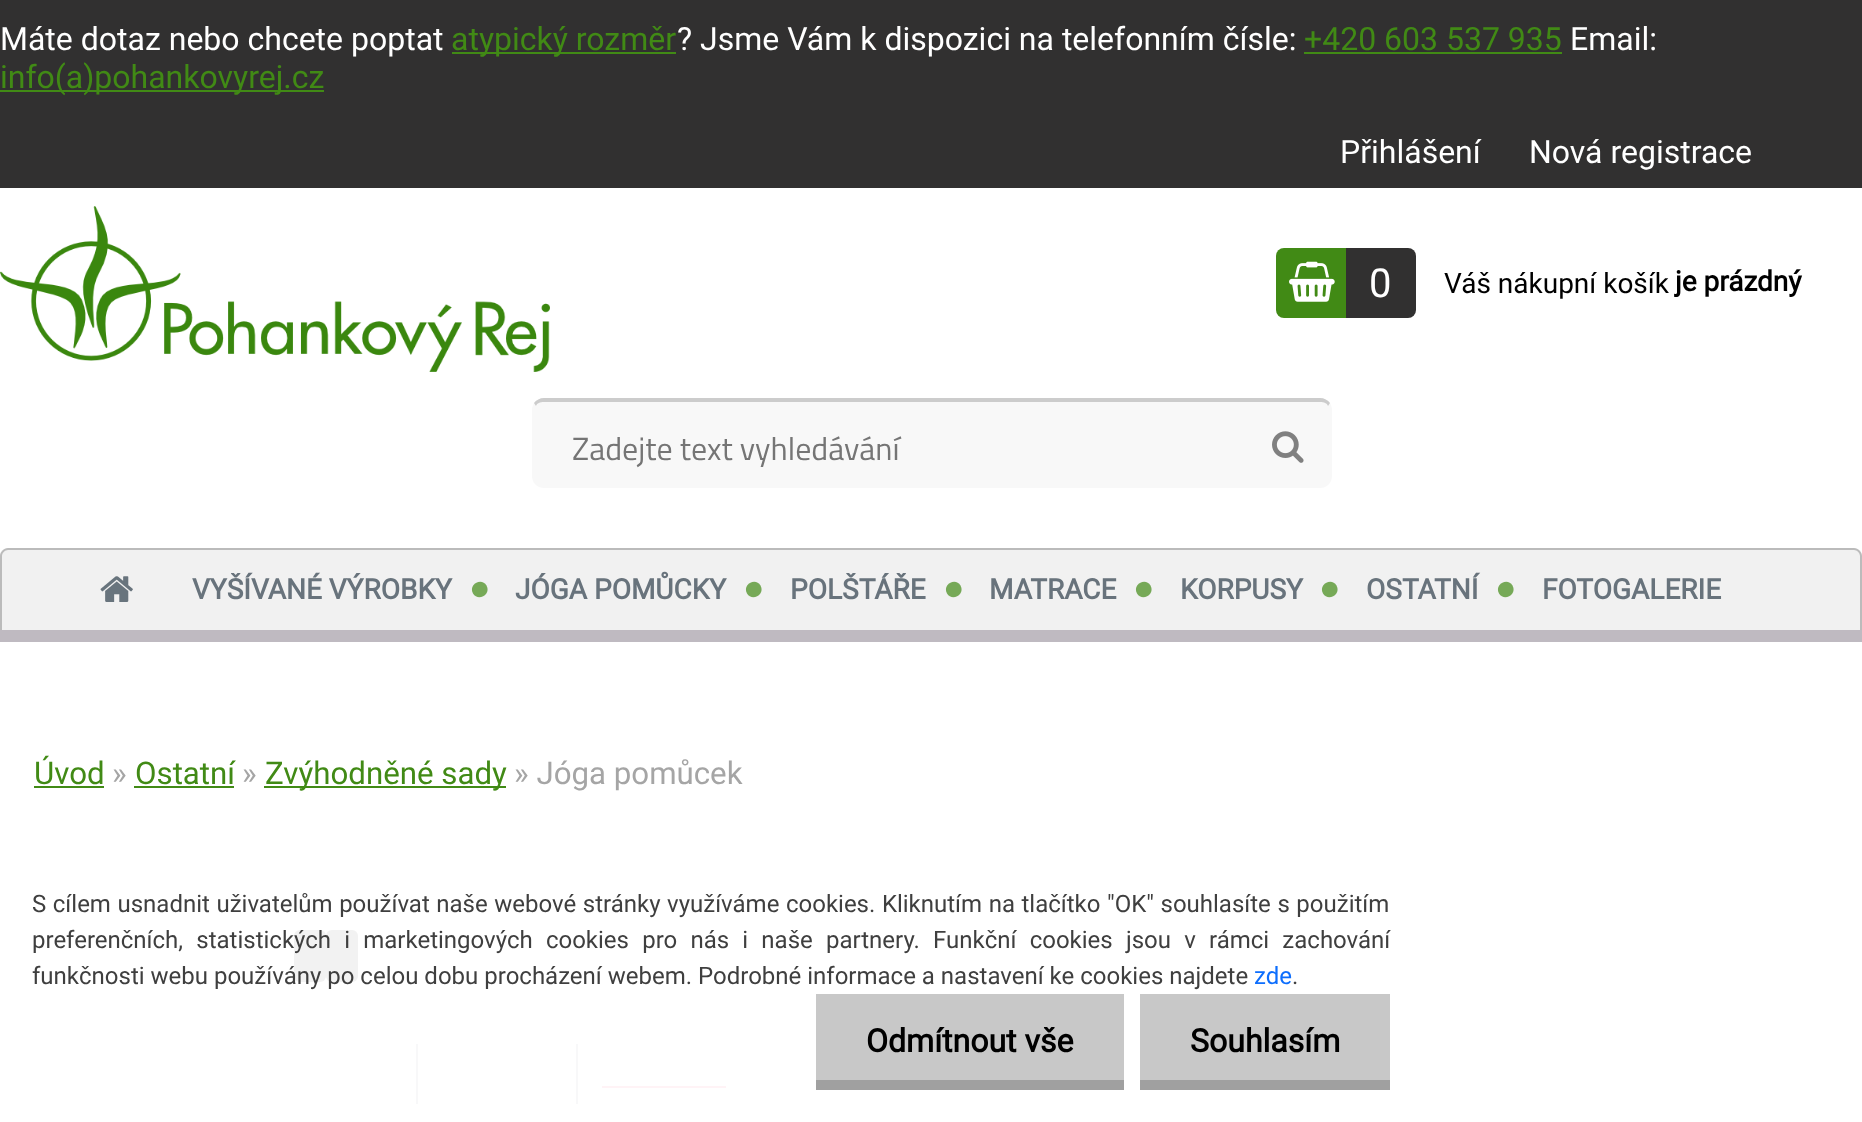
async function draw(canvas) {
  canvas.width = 1862
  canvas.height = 1122
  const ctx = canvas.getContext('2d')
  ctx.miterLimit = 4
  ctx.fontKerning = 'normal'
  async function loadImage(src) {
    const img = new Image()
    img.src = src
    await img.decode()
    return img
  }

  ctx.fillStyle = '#fff'
  ctx.fillRect(0, 0, 1862, 1122)
  ctx.fillStyle = '#313030'
  ctx.fillRect(0, 0, 1862, 188)
  ctx.font = '32px Roboto'
  ctx.fillStyle = '#fff'
  ctx.fillText('Máte dotaz nebo chcete poptat', 0, 50)
  ctx.fillStyle = '#418a15'
  ctx.fillRect(452, 52, 224, 2)
  ctx.fillText('atypický rozměr', 451, 50)
  ctx.fillStyle = '#fff'
  ctx.fillText('? Jsme Vám k dispozici na telefonním čísle:', 677, 50)
  ctx.fillStyle = '#418a15'
  ctx.fillText('+420 603 537 935', 1304, 50)
  ctx.fillRect(1304, 52, 258, 2)
  ctx.fillStyle = '#fff'
  ctx.fillText('Email:', 1570, 50)
  ctx.fillStyle = '#418a15'
  ctx.fillRect(0, 90, 324, 2)
  ctx.fillText('info(a)pohankovyrej.cz', 0, 88)
  ctx.fillStyle = '#fff'
  ctx.fillText('Přihlášení', 1340, 163)
  ctx.fillText('Nová registrace', 1529, 163)
  ctx.fillStyle = '#bfbac1'
  ctx.fillRect(0, 630, 1862, 12)
  ctx.drawImage(await loadImage('image0.png'), 0, 206, 550, 166)
  ctx.fillStyle = '#418a15'
  ctx.beginPath()
  ctx.roundRect(1276, 248, 70, 70, [8, 0, 0, 8])
  ctx.fill()
  ctx.drawImage(await loadImage('image1.png'), 1289, 261, 46, 41)
  ctx.fillStyle = '#313030'
  ctx.beginPath()
  ctx.roundRect(1346, 248, 70, 70, [0, 8, 8, 0])
  ctx.fill()
  ctx.font = '40px Roboto'
  ctx.fillStyle = '#fff'
  ctx.fillText('0', 1369, 297)
  ctx.font = '28px Roboto'
  ctx.fillStyle = '#000'
  ctx.fillText('Váš nákupní košík', 1444, 293)
  ctx.font = 'bold 28px Roboto'
  ctx.fillText('je prázdný', 1675, 291)
  ctx.fillStyle = '#f8f8f8'
  ctx.beginPath()
  ctx.roundRect(532, 398, 800, 90, 12)
  ctx.fill()
  ctx.fillStyle = '#ccc'
  ctx.beginPath()
  ctx.moveTo(544, 398)
  ctx.bezierCurveTo(540, 398, 536, 400, 534, 403)
  ctx.lineTo(536, 406)
  ctx.bezierCurveTo(537, 403, 540, 402, 544, 402)
  ctx.lineTo(1320, 402)
  ctx.bezierCurveTo(1324, 402, 1327, 403, 1328, 406)
  ctx.lineTo(1330, 403)
  ctx.bezierCurveTo(1328, 400, 1324, 398, 1320, 398)
  ctx.closePath()
  ctx.fill()
  ctx.font = '32px Titillium Web'
  ctx.fillStyle = '#757575'
  ctx.fillText('Zadejte text vyhledávání', 572, 460)
  ctx.drawImage(await loadImage('image2.png'), 1272, 431, 32, 32)
  ctx.fillStyle = '#f1f1f1'
  ctx.beginPath()
  ctx.roundRect(0, 548, 1862, 82, [8, 8, 0, 0])
  ctx.fill()
  ctx.fillStyle = '#bbb'
  ctx.beginPath()
  ctx.moveTo(8, 548)
  ctx.lineTo(1854, 548)
  ctx.bezierCurveTo(1858, 548, 1862, 552, 1862, 556)
  ctx.lineTo(1862, 630)
  ctx.lineTo(0, 630)
  ctx.lineTo(0, 556)
  ctx.bezierCurveTo(0, 552, 4, 548, 8, 548)
  ctx.closePath()
  ctx.moveTo(8, 550)
  ctx.lineTo(1854, 550)
  ctx.bezierCurveTo(1857, 550, 1860, 553, 1860, 556)
  ctx.lineTo(1860, 630)
  ctx.lineTo(2, 630)
  ctx.lineTo(2, 556)
  ctx.bezierCurveTo(2, 553, 5, 550, 8, 550)
  ctx.closePath()
  ctx.fill('evenodd')
  ctx.drawImage(await loadImage('image3.png'), 100, 576, 33, 26)
  ctx.font = 'bold 28px Roboto'
  ctx.fillStyle = '#68737c'
  ctx.fillText('VYŠÍVANÉ VÝROBKY', 192, 599)
  ctx.fillStyle = '#76a957'
  ctx.beginPath()
  ctx.moveTo(486.5, 585.5)
  ctx.bezierCurveTo(491.5, 594.5, 478, 602, 473, 593.5)
  ctx.bezierCurveTo(468, 584.5, 481.5, 577, 486.5, 585.5)
  ctx.closePath()
  ctx.fill()
  ctx.fillStyle = '#68737c'
  ctx.fillText('JÓGA POMŮCKY', 515, 599)
  ctx.fillStyle = '#76a957'
  ctx.beginPath()
  ctx.moveTo(760.5, 585.5)
  ctx.bezierCurveTo(765.5, 594.5, 752, 602, 747, 593.5)
  ctx.bezierCurveTo(742, 584.5, 755.5, 577, 760.5, 585.5)
  ctx.closePath()
  ctx.fill()
  ctx.fillStyle = '#68737c'
  ctx.fillText('POLŠTÁŘE', 790, 599)
  ctx.fillStyle = '#76a957'
  ctx.beginPath()
  ctx.moveTo(960.5, 585.5)
  ctx.bezierCurveTo(965.5, 594.5, 952, 602, 947, 593.5)
  ctx.bezierCurveTo(942, 584.5, 955.5, 577, 960.5, 585.5)
  ctx.closePath()
  ctx.fill()
  ctx.fillStyle = '#68737c'
  ctx.fillText('MATRACE', 989, 599)
  ctx.fillStyle = '#76a957'
  ctx.beginPath()
  ctx.moveTo(1150.5, 585.5)
  ctx.bezierCurveTo(1155.5, 594.5, 1142, 602, 1137, 593.5)
  ctx.bezierCurveTo(1132, 584.5, 1145.5, 577, 1150.5, 585.5)
  ctx.closePath()
  ctx.fill()
  ctx.fillStyle = '#68737c'
  ctx.fillText('KORPUSY', 1180, 599)
  ctx.fillStyle = '#76a957'
  ctx.beginPath()
  ctx.moveTo(1336.5, 585.5)
  ctx.bezierCurveTo(1341.5, 594.5, 1328, 602, 1323, 593.5)
  ctx.bezierCurveTo(1318, 584.5, 1331.5, 577, 1336.5, 585.5)
  ctx.closePath()
  ctx.fill()
  ctx.fillStyle = '#68737c'
  ctx.fillText('OSTATNÍ', 1366, 599)
  ctx.fillStyle = '#76a957'
  ctx.beginPath()
  ctx.moveTo(1512.5, 585.5)
  ctx.bezierCurveTo(1517.5, 594.5, 1504, 602, 1499, 593.5)
  ctx.bezierCurveTo(1494, 584.5, 1507.5, 577, 1512.5, 585.5)
  ctx.closePath()
  ctx.fill()
  ctx.fillStyle = '#68737c'
  ctx.fillText('FOTOGALERIE', 1542, 599)
  ctx.font = '31.25px Roboto'
  ctx.fillStyle = '#418a15'
  ctx.fillText('Úvod', 34, 784)
  ctx.fillRect(34, 786, 70, 2)
  ctx.fillStyle = '#a5a5a5'
  ctx.fillText('»', 112, 784)
  ctx.fillStyle = '#418a15'
  ctx.fillText('Ostatní', 135, 784)
  ctx.fillRect(134, 786, 100, 2)
  ctx.fillStyle = '#a5a5a5'
  ctx.fillText('»', 242, 784)
  ctx.fillStyle = '#418a15'
  ctx.fillRect(264, 786, 242, 2)
  ctx.fillText('Zvýhodněné sady', 265, 784)
  ctx.fillStyle = '#a5a5a5'
  ctx.fillText('» Jóga pomůcek', 514, 784)
  ctx.fillStyle = '#f2f2f2'
  ctx.beginPath()
  ctx.roundRect(294, 930, 32, 52, 6)
  ctx.fill()
  ctx.beginPath()
  ctx.roundRect(326, 930, 32, 52, 6)
  ctx.fill()
  ctx.fillStyle = '#f8f8f9'
  ctx.fillRect(416, 1044, 2, 60)
  ctx.fillRect(576, 1044, 2, 60)
  ctx.fillStyle = '#fff3f6'
  ctx.fillRect(602, 1086, 124, 2)
  ctx.wordSpacing = '0.6px'
  ctx.font = '24px Roboto'
  ctx.fillStyle = '#3f3f3f'
  ctx.fillText('S cílem usnadnit uživatelům používat naše webové stránky využíváme cookies. Kliknutím na tlačítko "OK" souhlasíte s použitím', 32, 912)
  ctx.wordSpacing = '7.25px'
  ctx.fillText('preferenčních, statistických i marketingových cookies pro nás i naše partnery. Funkční cookies jsou v rámci zachování', 32, 948)
  ctx.wordSpacing = '0px'
  ctx.fillText('funkčnosti webu používány po celou dobu procházení webem. Podrobné informace a nastavení ke cookies najdete', 32, 984)
  ctx.fillStyle = '#0d6efd'
  ctx.fillText('zde', 1254, 984)
  ctx.fillStyle = '#3f3f3f'
  ctx.fillText('.', 1292, 984)
  ctx.fillStyle = '#c8c8c8'
  ctx.fillRect(816, 994, 308, 86)
  ctx.fillStyle = '#a0a0a0'
  ctx.fillRect(816, 1080, 308, 10)
  ctx.font = 'bold 32px Roboto'
  ctx.fillStyle = '#000'
  ctx.fillText('Odmítnout vše', 866, 1052)
  ctx.fillStyle = '#c8c8c8'
  ctx.fillRect(1140, 994, 250, 86)
  ctx.fillStyle = '#a0a0a0'
  ctx.fillRect(1140, 1080, 250, 10)
  ctx.fillStyle = '#000'
  ctx.fillText('Souhlasím', 1190, 1052)
}

draw(document.querySelector('canvas'))
